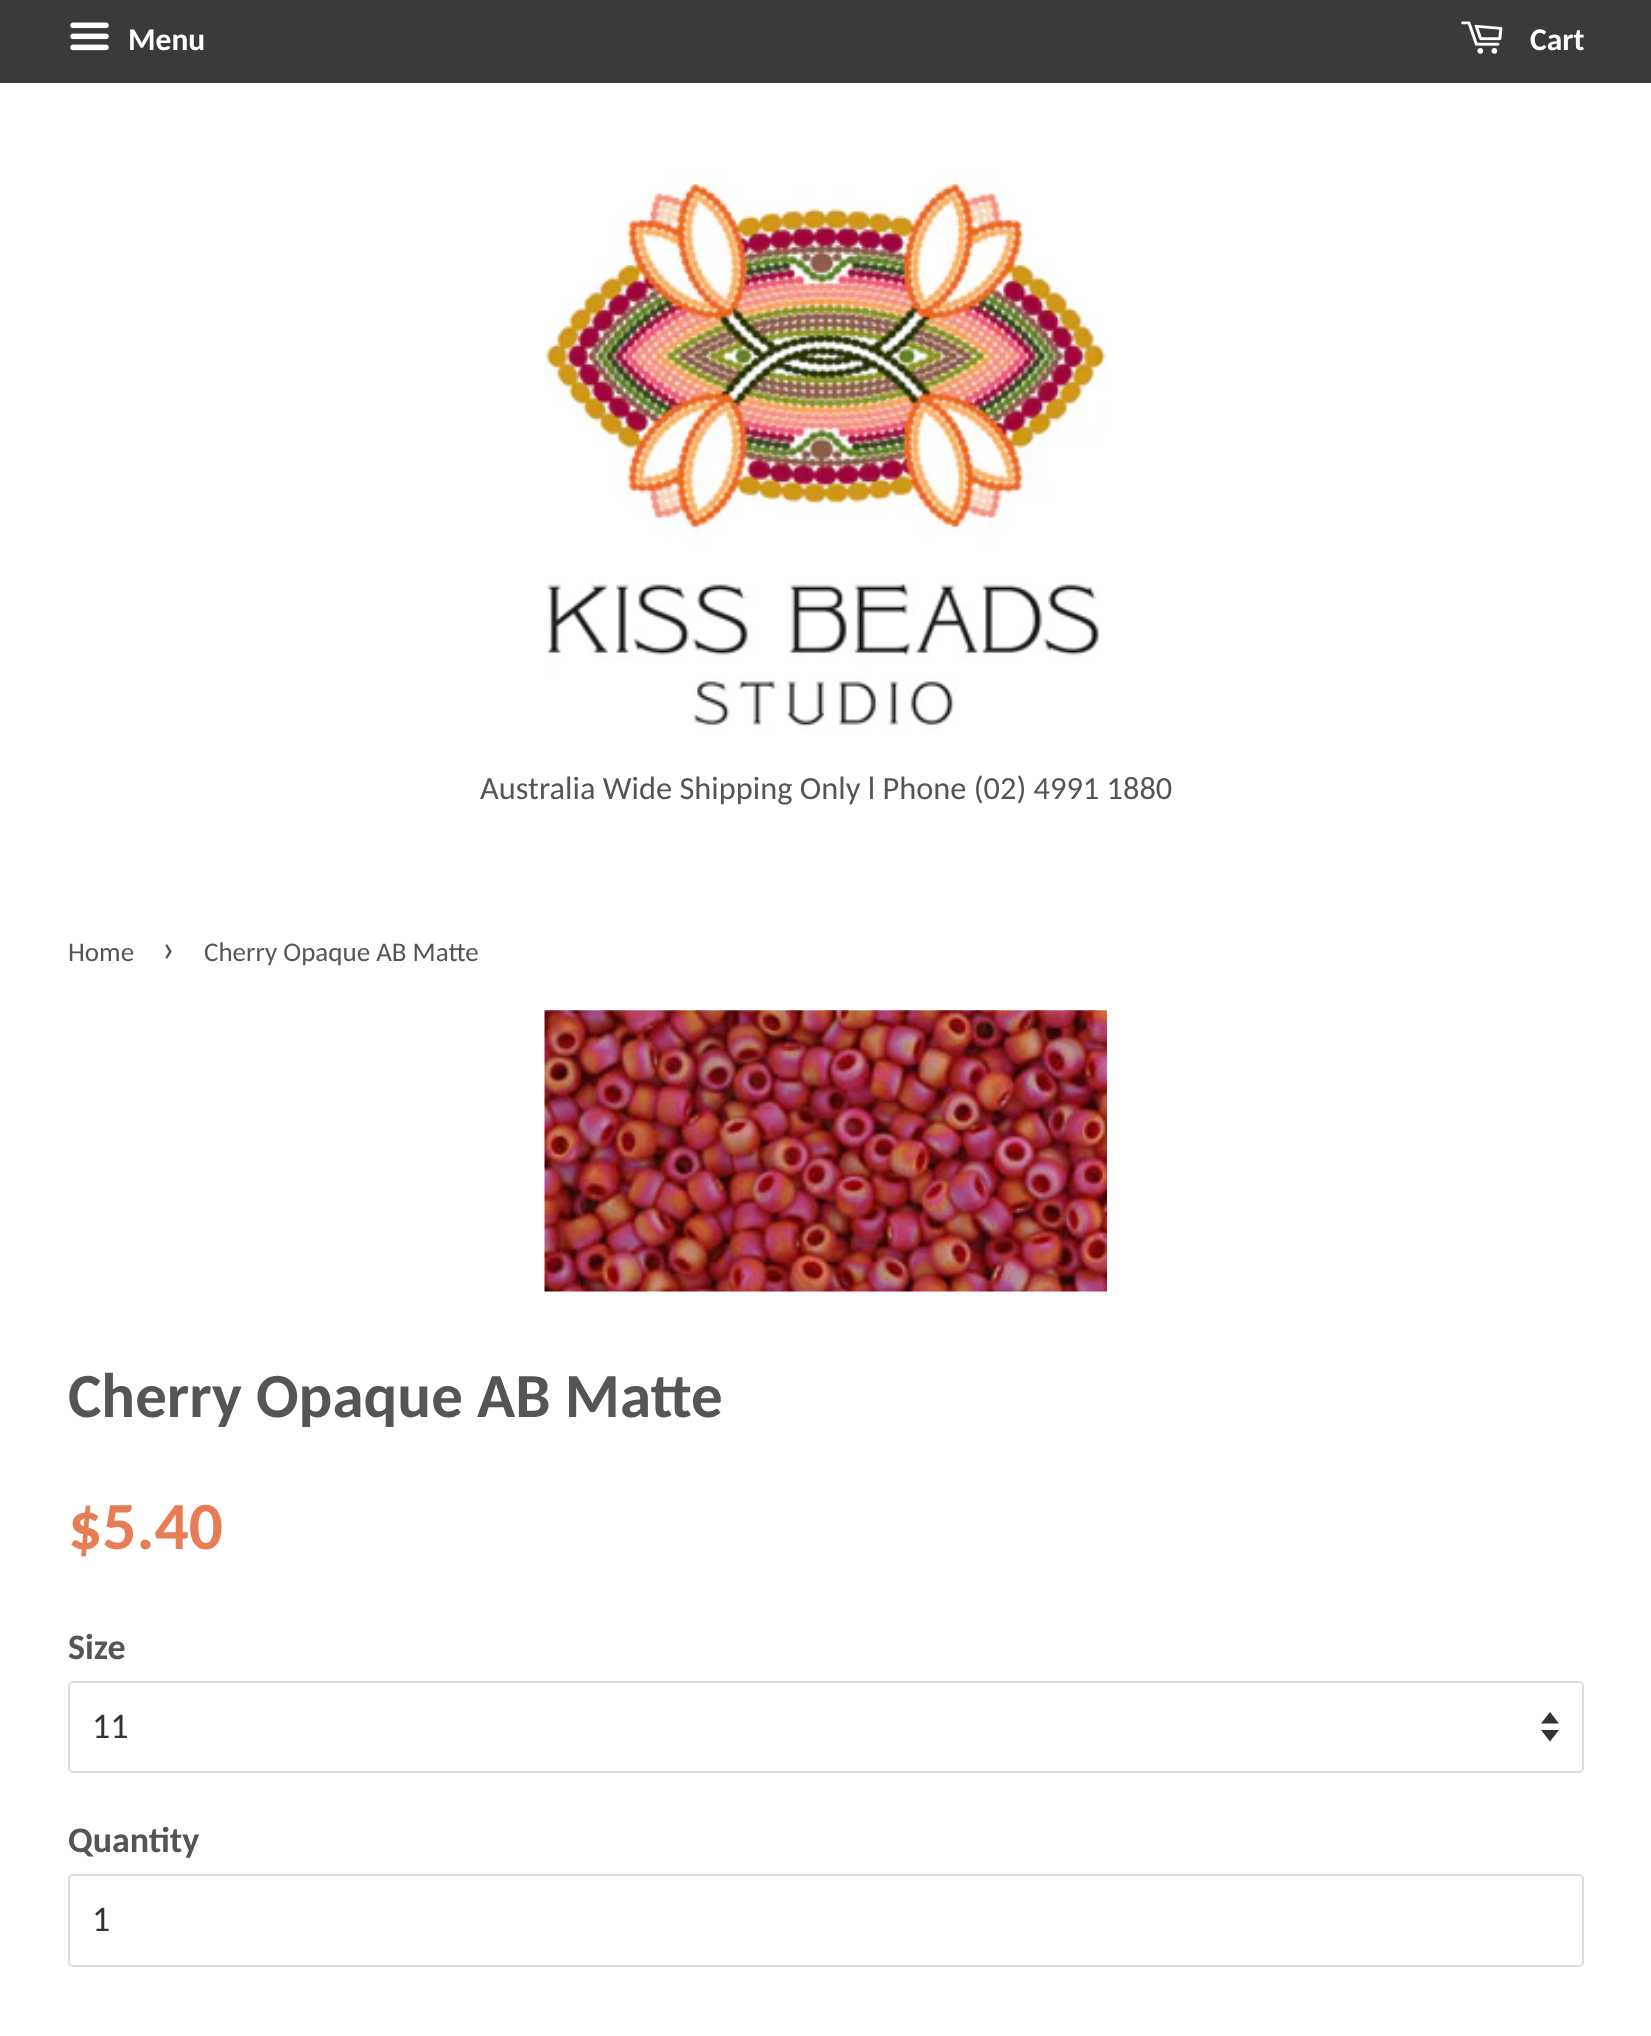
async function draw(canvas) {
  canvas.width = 1651
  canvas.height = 2036
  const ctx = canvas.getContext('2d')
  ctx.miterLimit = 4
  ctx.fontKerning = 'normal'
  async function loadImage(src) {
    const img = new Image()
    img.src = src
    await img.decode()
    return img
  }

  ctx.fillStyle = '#fff'
  ctx.fillRect(0, 0, 1651, 2036)
  ctx.fillStyle = '#3a3a3a'
  ctx.fillRect(0, 0, 1651, 83)
  ctx.drawImage(await loadImage('image0.png'), 70, 22, 39, 29)
  ctx.font = 'bold 31.5px Carlito'
  ctx.fillStyle = '#fff'
  ctx.fillText('Menu', 128, 50)
  ctx.drawImage(await loadImage('image1.png'), 1461, 21, 42, 33)
  ctx.fillText('Cart', 1530, 50)
  ctx.drawImage(await loadImage('image2.png'), 544, 174, 563, 557)
  ctx.font = '32.4px Carlito'
  ctx.fillStyle = '#555'
  ctx.fillText('Australia Wide Shipping Only l Phone (02) 4991 1880', 480, 799)
  ctx.font = '27px Carlito'
  ctx.fillText('Home', 68, 961)
  ctx.font = '38px Carlito'
  ctx.fillText('›', 162, 961)
  ctx.font = '27px Carlito'
  ctx.fillText('Cherry Opaque AB Matte', 204, 961)
  ctx.drawImage(await loadImage('image3.png'), 544, 1010, 563, 282)
  ctx.font = 'bold 63px Carlito'
  ctx.fillText('Cherry Opaque AB Matte', 68, 1417)
  ctx.font = 'bold 67.5px Carlito'
  ctx.fillStyle = '#e77d54'
  ctx.fillText('$5.40', 68, 1549)
  ctx.font = 'bold 36px Carlito'
  ctx.fillStyle = '#555'
  ctx.fillText('Size', 68, 1659)
  ctx.fillStyle = '#333'
  ctx.beginPath()
  ctx.moveTo(1541, 1730)
  ctx.lineTo(1550, 1741.5)
  ctx.lineTo(1559, 1730)
  ctx.closePath()
  ctx.moveTo(1550, 1712)
  ctx.lineTo(1541, 1723.5)
  ctx.lineTo(1559, 1723.5)
  ctx.closePath()
  ctx.fill()
  ctx.beginPath()
  ctx.roundRect(69, 1682, 1514, 90, 4)
  ctx.strokeStyle = '#ddd'
  ctx.lineWidth = 2
  ctx.stroke()
  ctx.font = '36px Carlito'
  ctx.fillText('11', 92, 1738)
  ctx.font = 'bold 36px Carlito'
  ctx.fillStyle = '#555'
  ctx.fillText('Quantity', 68, 1852)
  ctx.beginPath()
  ctx.roundRect(69, 1875, 1514, 91, 4)
  ctx.stroke()
  ctx.font = '36px Carlito'
  ctx.fillStyle = '#333'
  ctx.fillText('1', 92, 1931)
}

draw(document.querySelector('canvas'))
